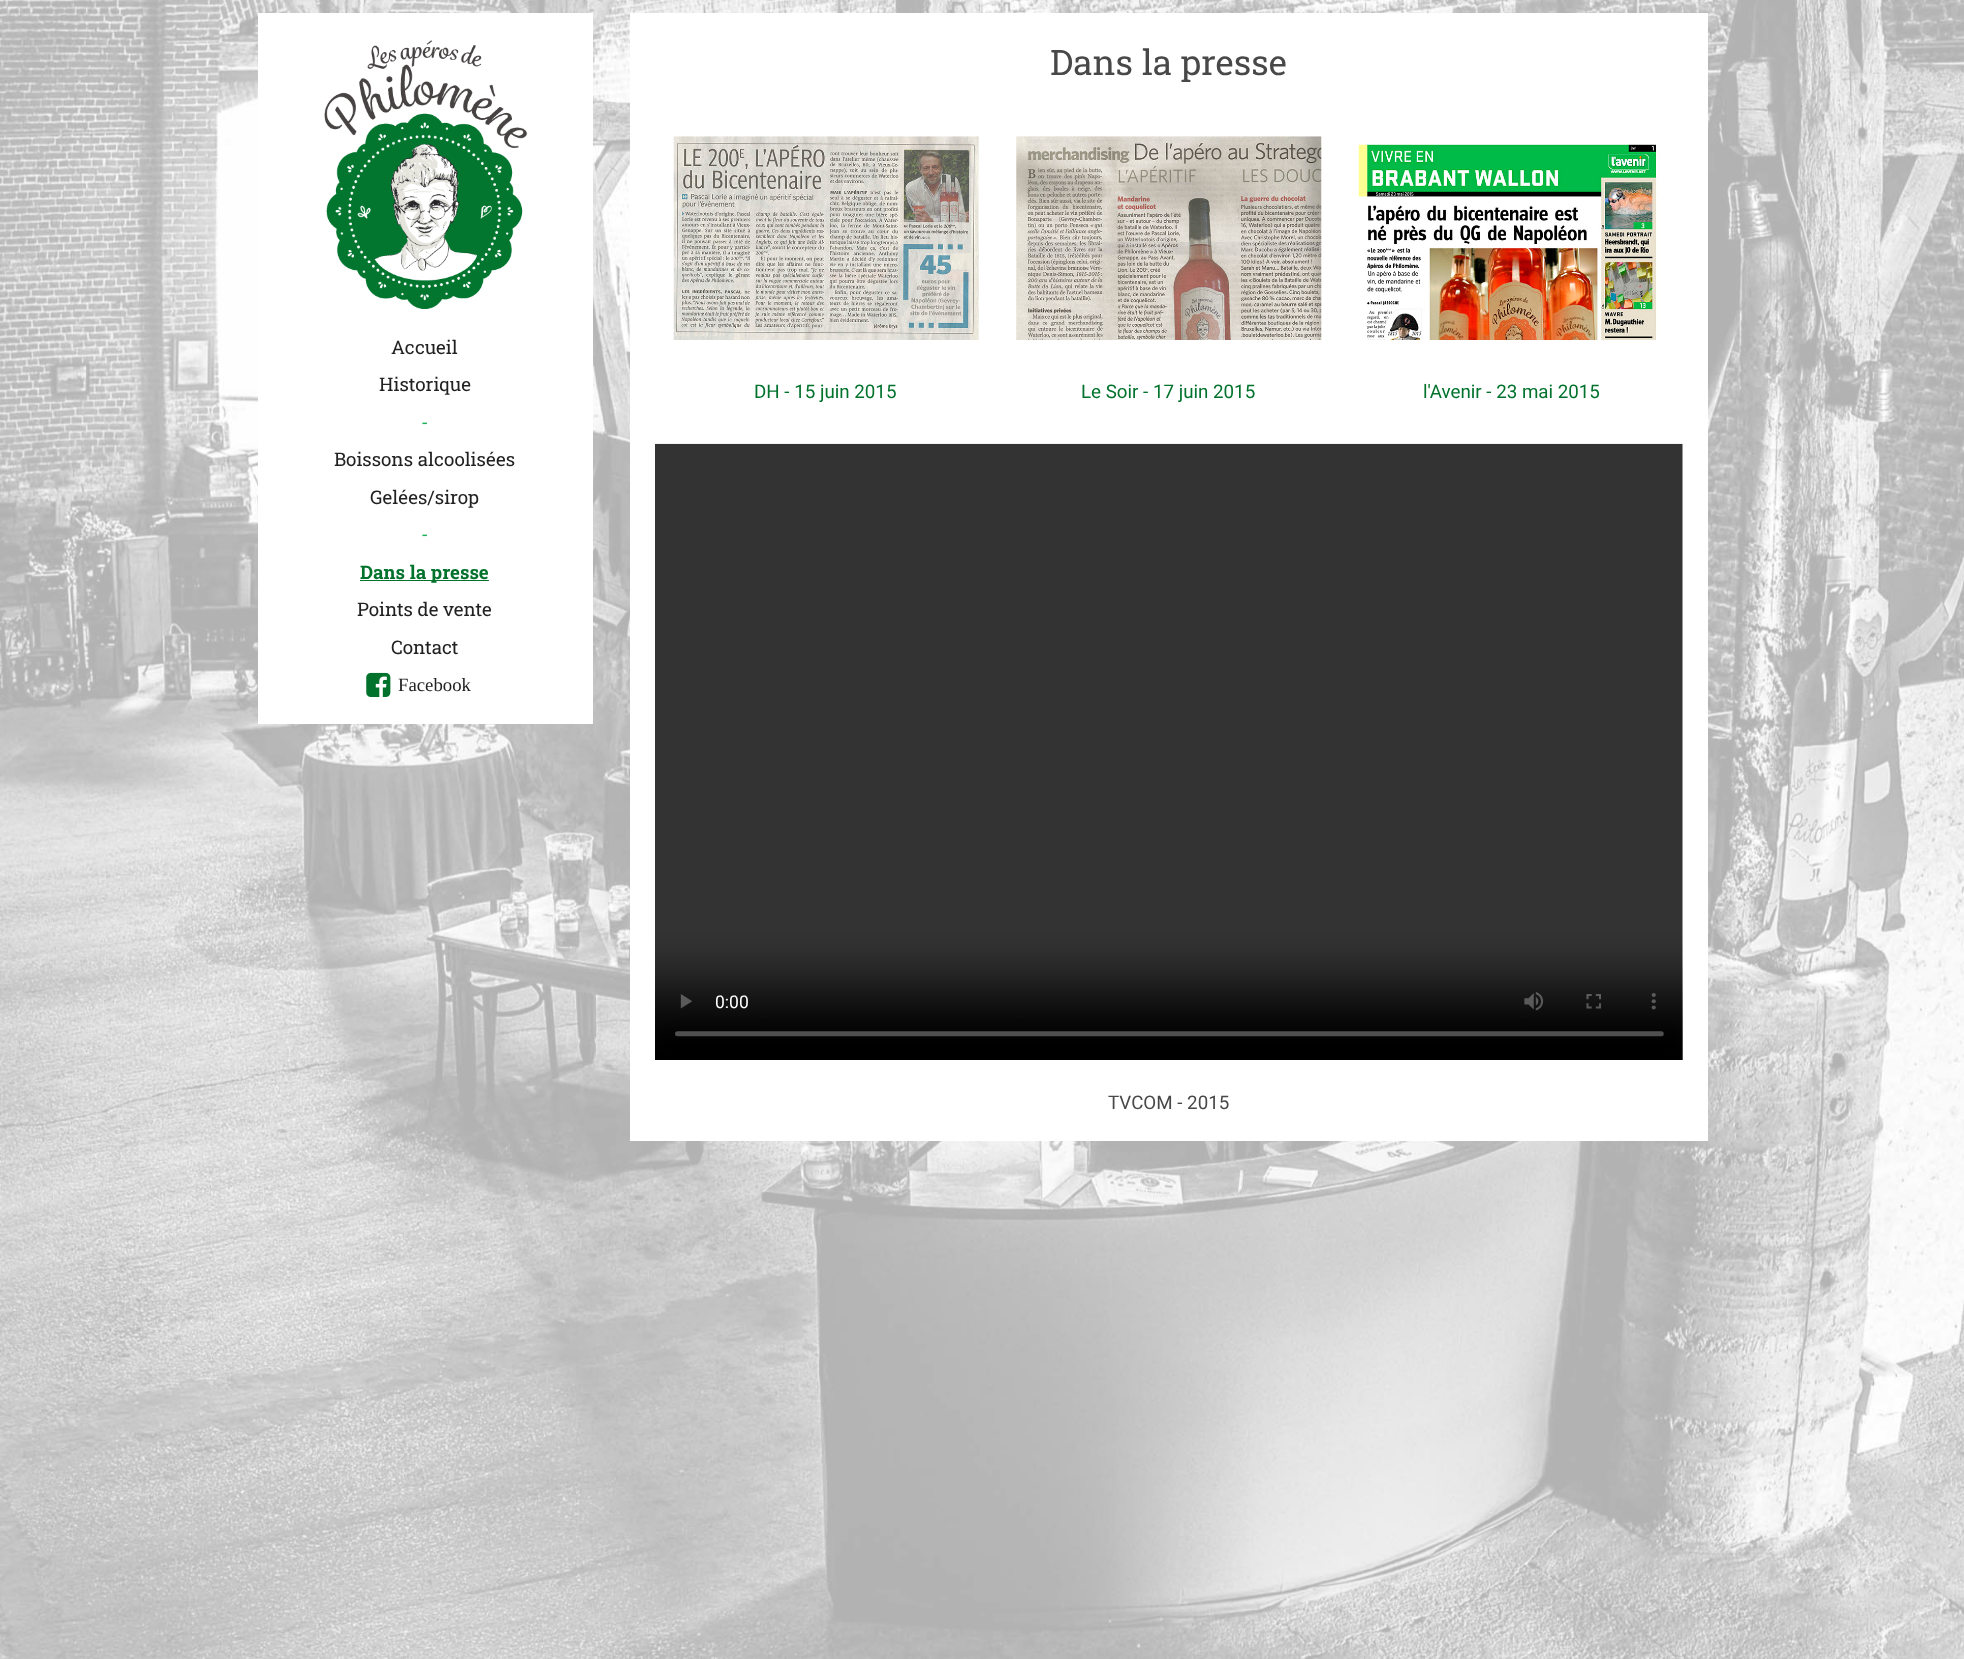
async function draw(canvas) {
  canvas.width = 1964
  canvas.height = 1659
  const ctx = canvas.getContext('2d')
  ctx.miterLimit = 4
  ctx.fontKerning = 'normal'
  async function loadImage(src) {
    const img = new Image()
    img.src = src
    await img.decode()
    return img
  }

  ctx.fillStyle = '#fff'
  ctx.fillRect(0, 0, 1964, 1659)
  ctx.drawImage(await loadImage('image0.png'), 0, 0, 1964, 1659)
  ctx.fillRect(258, 13, 335, 711)
  ctx.drawImage(await loadImage('image1.png'), 324, 40, 204, 269)
  ctx.font = '18.75px Roboto Slab'
  ctx.fillStyle = '#222'
  ctx.fillText('Accueil', 391, 354)
  ctx.fillText('Historique', 379, 391)
  ctx.fillStyle = '#17b253'
  ctx.fillText('-', 421, 429)
  ctx.fillStyle = '#222'
  ctx.fillText('Boissons alcoolisées', 334, 466)
  ctx.fillText('Gelées/sirop', 370, 504)
  ctx.fillStyle = '#17b253'
  ctx.fillText('-', 421, 541)
  ctx.fillStyle = '#00722c'
  ctx.fillRect(360, 580, 129, 1)
  ctx.font = 'bold 18.75px Roboto Slab'
  ctx.fillText('Dans la presse', 360, 579)
  ctx.font = '18.75px Roboto Slab'
  ctx.fillStyle = '#222'
  ctx.fillText('Points de vente', 357, 616)
  ctx.fillText('Contact', 391, 654)
  ctx.drawImage(await loadImage('image2.png'), 366, 672, 25, 25)
  ctx.font = '18.75px Liberation Serif'
  ctx.fillText('Facebook', 398, 691)
  ctx.fillStyle = '#fff'
  ctx.fillRect(630, 13, 1078, 1128)
  ctx.font = '35px Roboto Slab'
  ctx.fillStyle = '#484848'
  ctx.fillText('Dans la presse', 1050, 75)
  ctx.drawImage(await loadImage('image3.png'), 673, 136, 306, 204)
  ctx.font = '18.75px Roboto'
  ctx.fillStyle = '#00722c'
  ctx.fillText('DH - 15 juin 2015', 754, 398)
  ctx.drawImage(await loadImage('image4.png'), 1016, 136, 306, 204)
  ctx.fillText('Le Soir - 17 juin 2015', 1081, 398)
  ctx.drawImage(await loadImage('image5.png'), 1358, 144, 302, 196)
  ctx.fillText('l\'Avenir - 23 mai 2015', 1423, 398)
  ctx.drawImage(await loadImage('image6.png'), 655, 443, 1028, 617)
  ctx.fillStyle = '#484848'
  ctx.fillText('TVCOM - 2015', 1108, 1109)
}

draw(document.querySelector('canvas'))
